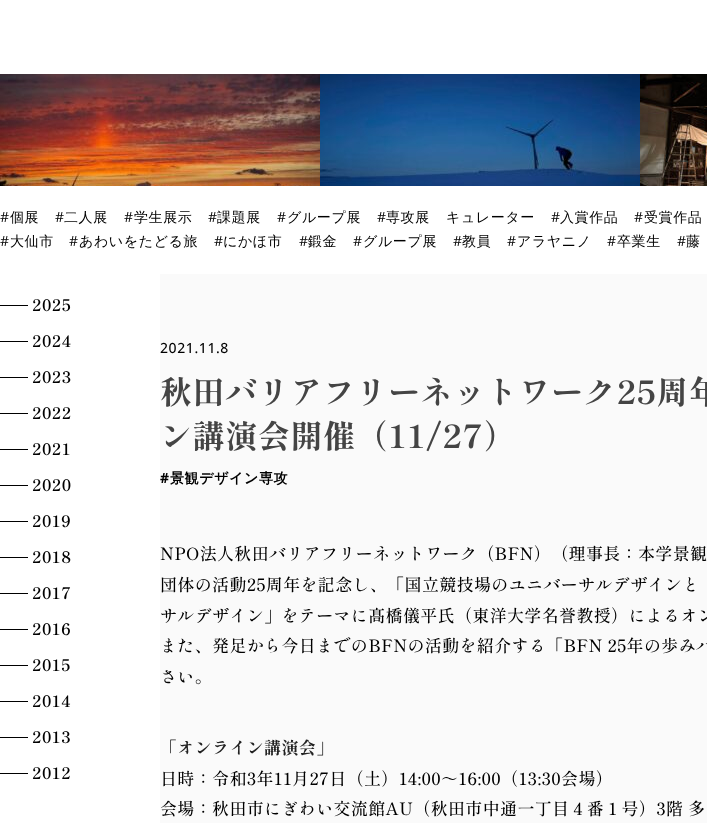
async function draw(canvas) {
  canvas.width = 707
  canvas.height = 823
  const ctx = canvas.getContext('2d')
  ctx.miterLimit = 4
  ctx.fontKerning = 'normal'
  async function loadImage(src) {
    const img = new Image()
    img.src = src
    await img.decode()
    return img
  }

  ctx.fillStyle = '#fff'
  ctx.fillRect(0, 0, 707, 823)
  ctx.drawImage(await loadImage('image0.png'), 0, 74, 320, 112)
  ctx.drawImage(await loadImage('image1.png'), 320, 74, 320, 112)
  ctx.drawImage(await loadImage('image2.png'), 640, 74, 67, 112)
  ctx.letterSpacing = '0.6px'
  ctx.font = '14px Open Sans'
  ctx.fillStyle = '#000'
  ctx.fillText('#', 0, 222)
  ctx.font = '500 14px WenQuanYi Zen Hei'
  ctx.fillText('個展', 10, 222)
  ctx.font = '14px Open Sans'
  ctx.fillText('#', 55, 222)
  ctx.font = '500 14px WenQuanYi Zen Hei'
  ctx.fillText('二人展', 64, 222)
  ctx.font = '14px Open Sans'
  ctx.fillText('#', 124, 222)
  ctx.font = '500 14px WenQuanYi Zen Hei'
  ctx.fillText('学生展示', 134, 222)
  ctx.font = '14px Open Sans'
  ctx.fillText('#', 208, 222)
  ctx.font = '500 14px WenQuanYi Zen Hei'
  ctx.fillText('課題展', 217, 222)
  ctx.font = '14px Open Sans'
  ctx.fillText('#', 277, 222)
  ctx.font = '500 14px WenQuanYi Zen Hei'
  ctx.fillText('グループ展', 287, 222)
  ctx.font = '14px Open Sans'
  ctx.fillText('#', 377, 222)
  ctx.font = '500 14px WenQuanYi Zen Hei'
  ctx.fillText('専攻展', 386, 222)
  ctx.fillText('キュレーター', 446, 222)
  ctx.font = '14px Open Sans'
  ctx.fillText('#', 551, 222)
  ctx.font = '500 14px WenQuanYi Zen Hei'
  ctx.fillText('入賞作品', 560, 222)
  ctx.font = '14px Open Sans'
  ctx.fillText('#', 634, 222)
  ctx.font = '500 14px WenQuanYi Zen Hei'
  ctx.fillText('受賞作品', 644, 222)
  ctx.font = '14px Open Sans'
  ctx.fillText('#', 0, 246)
  ctx.font = '500 14px WenQuanYi Zen Hei'
  ctx.fillText('大仙市', 10, 246)
  ctx.font = '14px Open Sans'
  ctx.fillText('#', 69, 246)
  ctx.font = '500 14px WenQuanYi Zen Hei'
  ctx.fillText('あわいをたどる旅', 79, 246)
  ctx.font = '14px Open Sans'
  ctx.fillText('#', 214, 246)
  ctx.font = '500 14px WenQuanYi Zen Hei'
  ctx.fillText('にかほ市', 223, 246)
  ctx.font = '14px Open Sans'
  ctx.fillText('#', 299, 246)
  ctx.font = '500 14px WenQuanYi Zen Hei'
  ctx.fillText('鍛金', 308, 246)
  ctx.font = '14px Open Sans'
  ctx.fillText('#', 353, 246)
  ctx.font = '500 14px WenQuanYi Zen Hei'
  ctx.fillText('グループ展', 363, 246)
  ctx.font = '14px Open Sans'
  ctx.fillText('#', 453, 246)
  ctx.font = '500 14px WenQuanYi Zen Hei'
  ctx.fillText('教員', 462, 246)
  ctx.font = '14px Open Sans'
  ctx.fillText('#', 507, 246)
  ctx.font = '500 14px WenQuanYi Zen Hei'
  ctx.fillText('アラヤニノ', 517, 246)
  ctx.font = '14px Open Sans'
  ctx.fillText('#', 607, 246)
  ctx.font = '500 14px WenQuanYi Zen Hei'
  ctx.fillText('卒業生', 617, 246)
  ctx.font = '14px Open Sans'
  ctx.fillText('#', 677, 246)
  ctx.font = '500 14px WenQuanYi Zen Hei'
  ctx.fillText('藤', 686, 246)
  ctx.fillRect(0, 305, 28, 1)
  ctx.font = '600 16px "Shippori Mincho B1"'
  ctx.fillText('2025', 32, 311)
  ctx.fillRect(0, 341, 28, 1)
  ctx.fillText('2024', 32, 347)
  ctx.fillRect(0, 377, 28, 1)
  ctx.fillText('2023', 32, 383)
  ctx.fillRect(0, 413, 28, 1)
  ctx.fillText('2022', 32, 419)
  ctx.fillRect(0, 449, 28, 1)
  ctx.fillText('2021', 32, 455)
  ctx.fillRect(0, 485, 28, 1)
  ctx.fillText('2020', 32, 491)
  ctx.fillRect(0, 521, 28, 1)
  ctx.fillText('2019', 32, 527)
  ctx.fillRect(0, 557, 28, 1)
  ctx.fillText('2018', 32, 563)
  ctx.fillRect(0, 593, 28, 1)
  ctx.fillText('2017', 32, 599)
  ctx.fillRect(0, 629, 28, 1)
  ctx.fillText('2016', 32, 635)
  ctx.fillRect(0, 665, 28, 1)
  ctx.fillText('2015', 32, 671)
  ctx.fillRect(0, 701, 28, 1)
  ctx.fillText('2014', 32, 707)
  ctx.fillRect(0, 737, 28, 1)
  ctx.fillText('2013', 32, 743)
  ctx.fillRect(0, 773, 28, 1)
  ctx.fillText('2012', 32, 779)
  ctx.fillStyle = '#fafafa'
  ctx.fillRect(160, 274, 547, 549)
  ctx.font = '500 14px Open Sans'
  ctx.fillStyle = '#000'
  ctx.fillText('2021.11.8', 160, 353)
  ctx.font = 'bold 32px "Shippori Mincho B1"'
  ctx.fillStyle = '#444'
  ctx.fillText('秋田バリアフリーネットワーク25周年', 160, 404)
  ctx.fillText('ン講演会開催（11/27）', 160, 448)
  ctx.font = 'bold 14px Open Sans'
  ctx.fillStyle = '#000'
  ctx.fillText('#', 160, 483)
  ctx.font = 'bold 14px WenQuanYi Zen Hei'
  ctx.fillText('景観デザイン専攻', 170, 483)
  ctx.letterSpacing = '0.35px'
  ctx.font = '500 17px "Shippori Mincho B1"'
  ctx.fillText('NPO法人秋田バリアフリーネットワーク（BFN）（理事長：本学景観', 160, 560)
  ctx.fillText('団体の活動25周年を記念し、「国立競技場のユニバーサルデザインと', 160, 591)
  ctx.fillText('サルデザイン」をテーマに髙橋儀平氏（東洋大学名誉教授）によるオン', 160, 622)
  ctx.fillText('また、発足から今日までのBFNの活動を紹介する「BFN 25年の歩みパ', 160, 652)
  ctx.fillText('さい。', 160, 683)
  ctx.font = 'bold 17px "Shippori Mincho B1"'
  ctx.fillStyle = '#222'
  ctx.fillText('「オンライン講演会」', 160, 754)
  ctx.font = '500 17px "Shippori Mincho B1"'
  ctx.fillStyle = '#000'
  ctx.fillText('日時：令和3年11月27日（土）14:00～16:00（13:30会場）', 160, 785)
  ctx.fillText('会場：秋田市にぎわい交流館AU（秋田市中通一丁目４番１号）3階 多', 160, 815)
}

draw(document.querySelector('canvas'))
